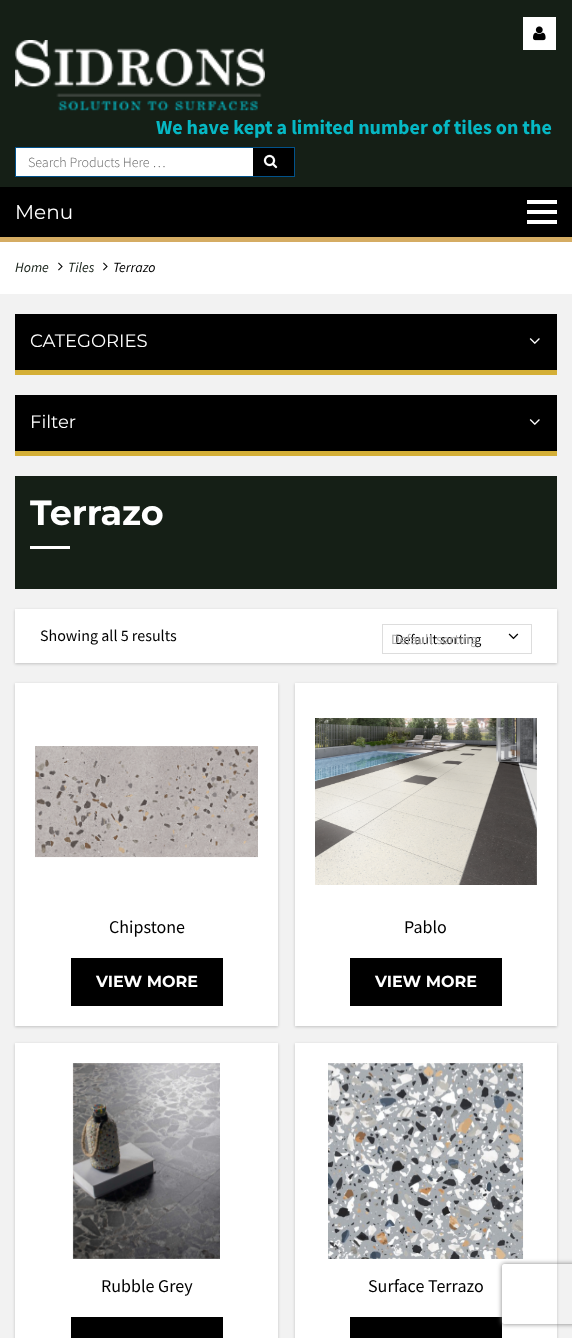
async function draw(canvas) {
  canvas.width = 572
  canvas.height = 1338
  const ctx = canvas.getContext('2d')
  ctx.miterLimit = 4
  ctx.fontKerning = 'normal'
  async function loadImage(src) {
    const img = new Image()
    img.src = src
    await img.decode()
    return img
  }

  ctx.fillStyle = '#f2f2f2'
  ctx.fillRect(0, 0, 572, 1338)
  ctx.fillStyle = '#151f16'
  ctx.fillRect(0, 0, 572, 187)
  ctx.fillStyle = '#fff'
  ctx.fillRect(523, 17, 33, 33)
  ctx.drawImage(await loadImage('image0.png'), 533, 26, 13, 15)
  ctx.drawImage(await loadImage('image1.png'), 15, 40, 250, 71)
  ctx.font = 'bold 20px Source Sans Pro'
  ctx.fillStyle = '#06b8c4'
  ctx.fillText('We have kept a limited number of tiles on the', 156, 134)
  ctx.fillStyle = '#fff'
  ctx.fillRect(16, 148, 237, 28)
  ctx.strokeStyle = '#02528a'
  ctx.strokeRect(15.5, 147.5, 279, 29)
  ctx.font = '300 14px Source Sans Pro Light'
  ctx.fillStyle = '#666'
  ctx.fillText('Search Products Here …', 28, 167)
  ctx.fillStyle = '#000'
  ctx.fillRect(253, 148, 41, 28)
  ctx.drawImage(await loadImage('image2.png'), 263, 154, 15, 15)
  ctx.fillRect(0, 187, 572, 50)
  ctx.fillStyle = '#d5ac63'
  ctx.fillRect(0, 237, 572, 5)
  ctx.font = '20px Montserrat'
  ctx.fillStyle = '#fff'
  ctx.fillText('Menu', 15, 219)
  ctx.fillRect(527, 210, 30, 4)
  ctx.fillRect(527, 200, 30, 4)
  ctx.fillRect(527, 220, 30, 4)
  ctx.fillRect(0, 242, 572, 52)
  ctx.font = 'italic 14px Source Sans Pro'
  ctx.fillStyle = '#151f16'
  ctx.fillText('Home', 15, 272)
  ctx.drawImage(await loadImage('image3.png'), 58, 262, 5, 9)
  ctx.fillText('Tiles', 68, 272)
  ctx.drawImage(await loadImage('image3.png'), 103, 262, 5, 9)
  ctx.fillStyle = '#000'
  ctx.fillText('Terrazo', 113, 272)
  ctx.fillRect(15, 314, 542, 56)
  ctx.fillStyle = '#d4af37'
  ctx.fillRect(15, 370, 542, 5)
  ctx.font = '18px Montserrat'
  ctx.fillStyle = '#fff'
  ctx.fillText('CATEGORIES', 30, 347)
  ctx.drawImage(await loadImage('image4.png'), 529, 338, 11, 6)
  ctx.fillStyle = '#000'
  ctx.fillRect(15, 395, 542, 56)
  ctx.fillStyle = '#d4af37'
  ctx.fillRect(15, 451, 542, 5)
  ctx.fillStyle = '#fff'
  ctx.fillText('Filter', 30, 428)
  ctx.drawImage(await loadImage('image4.png'), 529, 419, 11, 6)
  ctx.fillStyle = '#151f16'
  ctx.fillRect(15, 476, 542, 113)
  ctx.font = 'bold 35px Montserrat'
  ctx.fillStyle = '#fff'
  ctx.fillText('Terrazo', 30, 525)
  ctx.fillRect(30, 546, 40, 3)
  ctx.fillStyle = '#00000033'
  ctx.filter = 'blur(1.5px)'
  ctx.beginPath()
  ctx.rect(15, 610, 542, 54)
  ctx.fill()
  ctx.filter = 'none'
  ctx.fillStyle = '#fff'
  ctx.fillRect(15, 609, 542, 54)
  ctx.font = '16px Source Sans Pro'
  ctx.fillStyle = '#000'
  ctx.fillText('Showing all 5 results', 40, 641)
  ctx.strokeStyle = '#ddd'
  ctx.strokeRect(382.5, 624.5, 149, 29)
  ctx.font = '14px Source Sans Pro'
  ctx.fillText('Default sorting', 395, 644)
  ctx.fillStyle = '#acacac'
  ctx.fillText('Default sorting', 391, 644)
  ctx.drawImage(await loadImage('image5.png'), 508, 633, 11, 7)
  ctx.fillStyle = '#00000033'
  ctx.filter = 'blur(1.5px)'
  ctx.beginPath()
  ctx.rect(15, 684, 263, 343)
  ctx.fill()
  ctx.filter = 'none'
  ctx.fillStyle = '#fff'
  ctx.fillRect(15, 683, 263, 343)
  ctx.drawImage(await loadImage('image6.png'), 35, 746, 223, 112)
  ctx.font = '18px Source Sans Pro'
  ctx.fillStyle = '#000'
  ctx.fillText('Chipstone', 109, 933)
  ctx.fillRect(71, 958, 152, 48)
  ctx.font = 'bold 16px Montserrat'
  ctx.fillStyle = '#fff'
  ctx.fillText('VIEW MORE', 96, 987)
  ctx.fillStyle = '#00000033'
  ctx.filter = 'blur(1.5px)'
  ctx.beginPath()
  ctx.rect(295, 684, 262, 343)
  ctx.fill()
  ctx.filter = 'none'
  ctx.fillStyle = '#fff'
  ctx.fillRect(295, 683, 262, 343)
  ctx.drawImage(await loadImage('image7.png'), 315, 718, 222, 167)
  ctx.font = '18px Source Sans Pro'
  ctx.fillStyle = '#000'
  ctx.fillText('Pablo', 404, 933)
  ctx.fillRect(350, 958, 152, 48)
  ctx.font = 'bold 16px Montserrat'
  ctx.fillStyle = '#fff'
  ctx.fillText('VIEW MORE', 375, 987)
  ctx.fillStyle = '#00000033'
  ctx.filter = 'blur(1.5px)'
  ctx.beginPath()
  ctx.rect(15, 1044, 263, 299)
  ctx.fill()
  ctx.filter = 'none'
  ctx.fillStyle = '#fff'
  ctx.fillRect(15, 1043, 263, 295)
  ctx.drawImage(await loadImage('image8.png'), 72, 1063, 148, 196)
  ctx.font = '18px Source Sans Pro'
  ctx.fillStyle = '#000'
  ctx.fillText('Rubble Grey', 101, 1292)
  ctx.fillRect(71, 1317, 152, 21)
  ctx.fillStyle = '#00000033'
  ctx.filter = 'blur(1.5px)'
  ctx.beginPath()
  ctx.rect(295, 1044, 262, 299)
  ctx.fill()
  ctx.filter = 'none'
  ctx.fillStyle = '#fff'
  ctx.fillRect(295, 1043, 262, 295)
  ctx.fillStyle = '#000'
  ctx.fillRect(350, 1317, 152, 21)
  ctx.save()
  ctx.beginPath()
  ctx.moveTo(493, 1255)
  ctx.lineTo(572, 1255)
  ctx.lineTo(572, 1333)
  ctx.lineTo(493, 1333)
  ctx.closePath()
  ctx.moveTo(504, 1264)
  ctx.lineTo(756, 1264)
  ctx.bezierCurveTo(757, 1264, 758, 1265, 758, 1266)
  ctx.lineTo(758, 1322)
  ctx.bezierCurveTo(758, 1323, 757, 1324, 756, 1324)
  ctx.lineTo(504, 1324)
  ctx.bezierCurveTo(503, 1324, 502, 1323, 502, 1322)
  ctx.lineTo(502, 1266)
  ctx.bezierCurveTo(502, 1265, 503, 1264, 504, 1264)
  ctx.closePath()
  ctx.clip('evenodd')
  ctx.fillStyle = '#808080'
  ctx.filter = 'blur(2.5px)'
  ctx.beginPath()
  ctx.roundRect(502, 1264, 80, 60, 2)
  ctx.fill()
  ctx.filter = 'none'
  ctx.restore()
  ctx.drawImage(await loadImage('image9.png'), 328, 1063, 196, 196)
  ctx.fillText('Surface Terrazo', 368, 1292)
}

draw(document.querySelector('canvas'))
